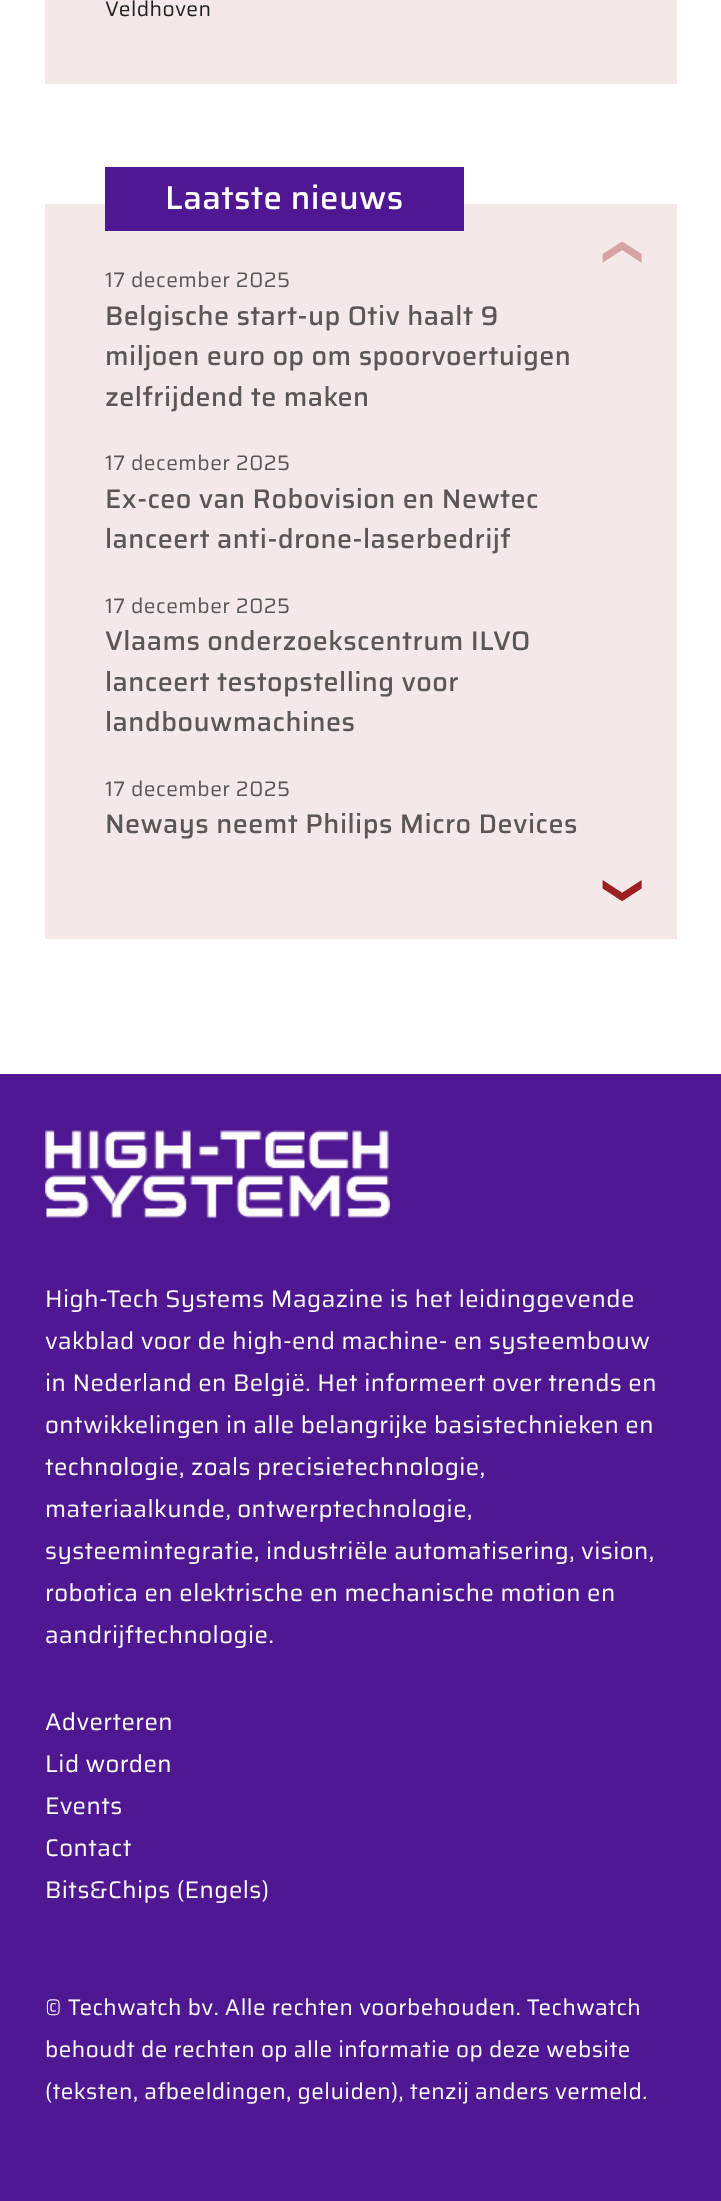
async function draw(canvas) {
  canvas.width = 721
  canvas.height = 2201
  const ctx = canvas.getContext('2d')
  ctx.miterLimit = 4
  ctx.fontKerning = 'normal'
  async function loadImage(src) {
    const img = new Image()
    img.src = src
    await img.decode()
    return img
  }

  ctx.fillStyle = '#fff'
  ctx.fillRect(0, 0, 721, 2201)
  ctx.fillStyle = '#f5e8e9'
  ctx.fillRect(45, 0, 632, 84)
  ctx.letterSpacing = '0.45px'
  ctx.font = '21px Saira'
  ctx.fillStyle = '#222'
  ctx.fillText('Veldhoven', 105, 16)
  ctx.fillStyle = '#f5e8e9'
  ctx.fillRect(45, 204, 632, 735)
  ctx.fillStyle = '#501793'
  ctx.fillRect(105, 167, 359, 64)
  ctx.font = '500 33px Saira'
  ctx.fillStyle = '#fff'
  ctx.fillText('Laatste nieuws', 165, 209)
  ctx.letterSpacing = '0px'
  ctx.font = '39px DejaVu Sans'
  ctx.fillStyle = '#d6a2a4'
  ctx.save()
  ctx.translate(612, 236)
  ctx.rotate(90 * Math.PI / 180)
  ctx.fillText('❮', 0, 0)
  ctx.restore()
  ctx.letterSpacing = '0.45px'
  ctx.font = '21px Saira'
  ctx.fillStyle = '#5c5757'
  ctx.fillText('17 december 2025', 105, 287)
  ctx.font = '500 27px Saira'
  ctx.fillText('Belgische start-up Otiv haalt 9', 105, 325)
  ctx.fillText('miljoen euro op om spoorvoertuigen', 105, 365)
  ctx.fillText('zelfrijdend te maken', 105, 406)
  ctx.font = '21px Saira'
  ctx.fillText('17 december 2025', 105, 470)
  ctx.font = '500 27px Saira'
  ctx.fillText('Ex-ceo van Robovision en Newtec', 105, 508)
  ctx.fillText('lanceert anti-drone-laserbedrijf', 105, 548)
  ctx.font = '21px Saira'
  ctx.fillText('17 december 2025', 105, 613)
  ctx.font = '500 27px Saira'
  ctx.fillText('Vlaams onderzoekscentrum ILVO', 105, 650)
  ctx.fillText('lanceert testopstelling voor', 105, 691)
  ctx.fillText('landbouwmachines', 105, 731)
  ctx.font = '21px Saira'
  ctx.fillText('17 december 2025', 105, 796)
  ctx.font = '500 27px Saira'
  ctx.fillText('Neways neemt Philips Micro Devices', 105, 833)
  ctx.letterSpacing = '0px'
  ctx.font = '39px DejaVu Sans'
  ctx.fillStyle = '#9b1f23'
  ctx.save()
  ctx.translate(612, 874)
  ctx.rotate(90 * Math.PI / 180)
  ctx.fillText('❯', 0, 0)
  ctx.restore()
  ctx.fillStyle = '#501793'
  ctx.fillRect(0, 1074, 721, 1127)
  ctx.drawImage(await loadImage('image0.png'), 45, 1130, 345, 88)
  ctx.letterSpacing = '0.45px'
  ctx.font = '24px Saira'
  ctx.fillStyle = '#fff'
  ctx.fillText('High-Tech Systems Magazine is het leidinggevende', 45, 1307)
  ctx.fillText('vakblad voor de high-end machine- en systeembouw', 45, 1349)
  ctx.fillText('in Nederland en België. Het informeert over trends en', 45, 1391)
  ctx.fillText('ontwikkelingen in alle belangrijke basistechnieken en', 45, 1433)
  ctx.fillText('technologie, zoals precisietechnologie,', 45, 1475)
  ctx.fillText('materiaalkunde, ontwerptechnologie,', 45, 1517)
  ctx.fillText('systeemintegratie, industriële automatisering, vision,', 45, 1559)
  ctx.fillText('robotica en elektrische en mechanische motion en', 45, 1601)
  ctx.fillText('aandrijftechnologie.', 45, 1643)
  ctx.fillText('Adverteren', 45, 1730)
  ctx.fillText('Lid worden', 45, 1772)
  ctx.fillText('Events', 45, 1814)
  ctx.fillText('Contact', 45, 1856)
  ctx.fillText('Bits&Chips (Engels)', 45, 1898)
  ctx.font = '22.5px Saira'
  ctx.fillText('© Techwatch bv. Alle rechten voorbehouden. Techwatch', 45, 2015)
  ctx.fillText('behoudt de rechten op alle informatie op deze website', 45, 2057)
  ctx.fillText('(teksten, afbeeldingen, geluiden), tenzij anders vermeld.', 45, 2099)
}

draw(document.querySelector('canvas'))
